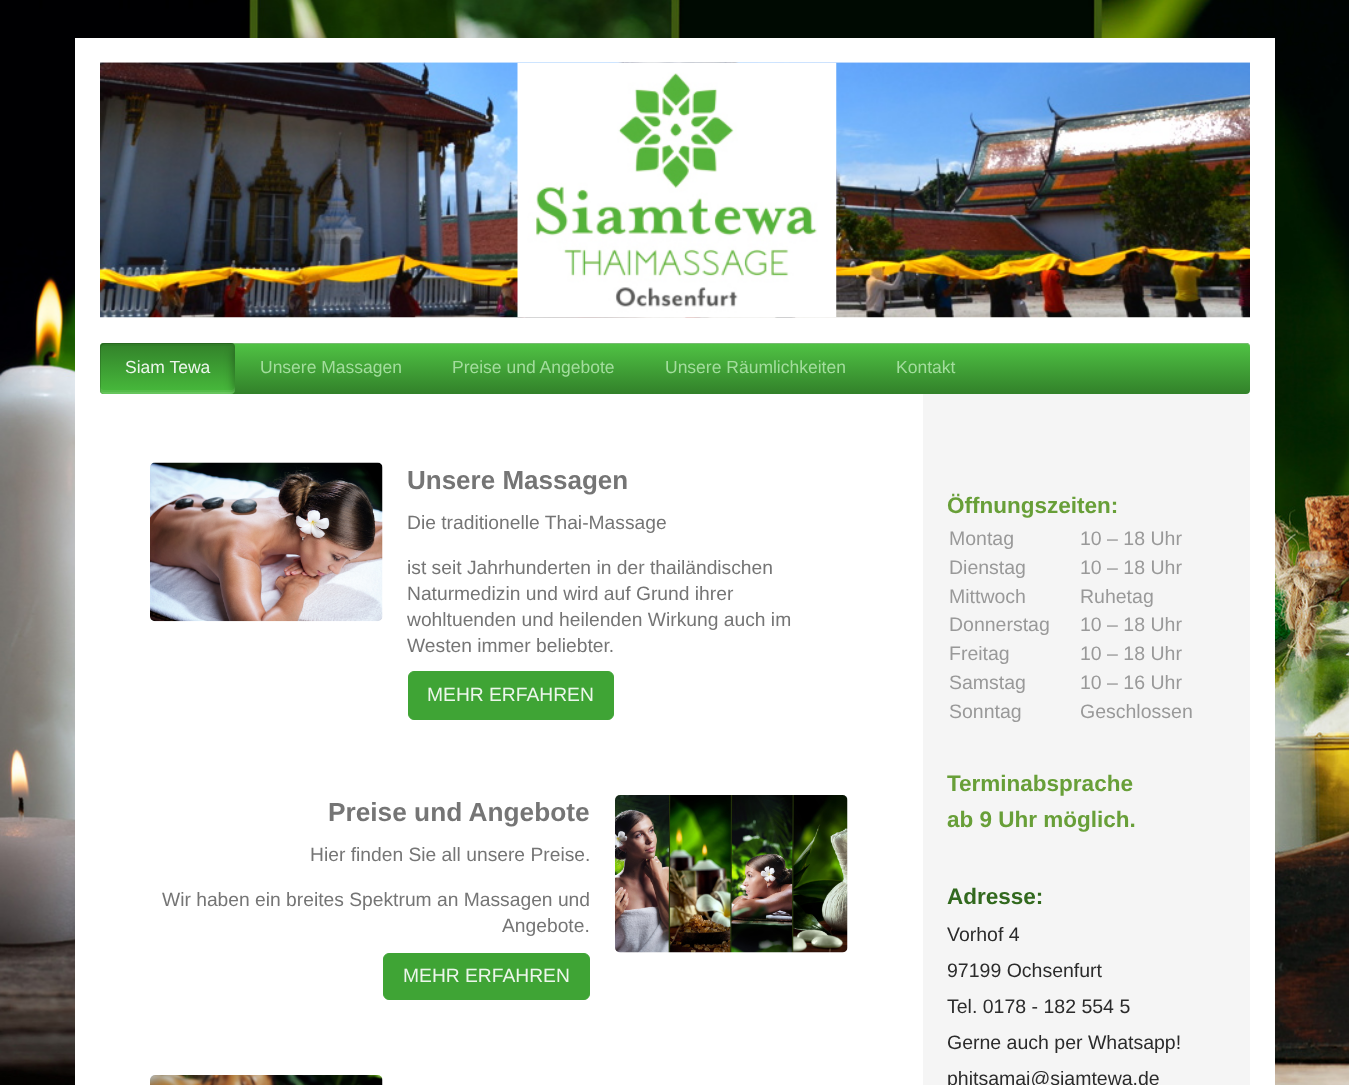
async function draw(canvas) {
  canvas.width = 1349
  canvas.height = 1085
  const ctx = canvas.getContext('2d')
  ctx.miterLimit = 4
  ctx.fontKerning = 'normal'
  async function loadImage(src) {
    const img = new Image()
    img.src = src
    await img.decode()
    return img
  }
  let gradient

  ctx.fillStyle = '#fff'
  ctx.fillRect(0, 0, 1349, 1085)
  ctx.drawImage(await loadImage('image0.png'), 0, 0, 1349, 1085)
  ctx.fillRect(75, 38, 1200, 1047)
  ctx.drawImage(await loadImage('image1.png'), 100, 62, 1150, 1)
  ctx.drawImage(await loadImage('image2.png'), 100, 62, 1150, 256)
  ctx.drawImage(await loadImage('image3.png'), 517, 62, 320, 256)
  gradient = ctx.createLinearGradient(100, 343, 100, 394)
  gradient.addColorStop(0, '#50c344')
  gradient.addColorStop(1, '#32812a')
  ctx.fillStyle = gradient
  ctx.beginPath()
  ctx.roundRect(100, 343, 1150, 51, 4)
  ctx.fill()
  ctx.fillStyle = '#3ea034'
  ctx.beginPath()
  ctx.moveTo(104, 344)
  ctx.lineTo(1246, 344)
  ctx.bezierCurveTo(1248, 344, 1250, 345, 1250, 348)
  ctx.bezierCurveTo(1250, 345, 1249, 343, 1246, 343)
  ctx.lineTo(104, 343)
  ctx.bezierCurveTo(101, 343, 100, 345, 100, 348)
  ctx.bezierCurveTo(100, 345, 102, 344, 104, 344)
  ctx.closePath()
  ctx.fill()
  ctx.fillStyle = '#ffffff4d'
  ctx.beginPath()
  ctx.moveTo(104, 344)
  ctx.lineTo(1246, 344)
  ctx.bezierCurveTo(1248, 344, 1250, 345, 1250, 348)
  ctx.bezierCurveTo(1250, 345, 1249, 343, 1246, 343)
  ctx.lineTo(104, 343)
  ctx.bezierCurveTo(101, 343, 100, 345, 100, 348)
  ctx.bezierCurveTo(100, 345, 102, 344, 104, 344)
  ctx.closePath()
  ctx.fill()
  gradient = ctx.createLinearGradient(100, 394, 100, 343)
  gradient.addColorStop(0, '#48bb3c')
  gradient.addColorStop(1, '#32812a')
  ctx.fillStyle = gradient
  ctx.beginPath()
  ctx.roundRect(100, 343, 135, 51, 4)
  ctx.fill()
  ctx.fillStyle = '#00000026'
  ctx.beginPath()
  ctx.moveTo(105, 344)
  ctx.lineTo(234, 344)
  ctx.bezierCurveTo(233, 343, 232, 343, 231, 343)
  ctx.lineTo(104, 343)
  ctx.bezierCurveTo(102, 343, 100, 345, 100, 347)
  ctx.lineTo(100, 390)
  ctx.bezierCurveTo(100, 391, 101, 393, 102, 393)
  ctx.lineTo(101, 391)
  ctx.lineTo(101, 348)
  ctx.bezierCurveTo(101, 345, 103, 344, 105, 344)
  ctx.closePath()
  ctx.fill()
  ctx.fillStyle = '#0000000a'
  ctx.beginPath()
  ctx.moveTo(104, 346)
  ctx.lineTo(231, 346)
  ctx.bezierCurveTo(233, 346, 235, 348, 235, 350)
  ctx.lineTo(235, 347)
  ctx.bezierCurveTo(235, 345, 233, 343, 231, 343)
  ctx.lineTo(104, 343)
  ctx.bezierCurveTo(102, 343, 100, 345, 100, 347)
  ctx.lineTo(100, 350)
  ctx.bezierCurveTo(100, 348, 102, 346, 104, 346)
  ctx.closePath()
  ctx.fill()
  ctx.fillStyle = '#ffffff14'
  ctx.beginPath()
  ctx.moveTo(100, 386)
  ctx.lineTo(100, 390)
  ctx.bezierCurveTo(100, 392, 102, 394, 104, 394)
  ctx.lineTo(231, 394)
  ctx.bezierCurveTo(233, 394, 235, 392, 235, 390)
  ctx.lineTo(235, 386)
  ctx.bezierCurveTo(235, 388, 233, 390, 231, 390)
  ctx.lineTo(104, 390)
  ctx.bezierCurveTo(102, 390, 100, 388, 100, 386)
  ctx.closePath()
  ctx.fill()
  ctx.fillStyle = '#ffffff1a'
  ctx.beginPath()
  ctx.moveTo(100, 389)
  ctx.lineTo(100, 390)
  ctx.bezierCurveTo(100, 392, 102, 394, 104, 394)
  ctx.lineTo(231, 394)
  ctx.bezierCurveTo(233, 394, 235, 392, 235, 390)
  ctx.lineTo(235, 389)
  ctx.bezierCurveTo(235, 391, 233, 392, 231, 392)
  ctx.lineTo(104, 392)
  ctx.bezierCurveTo(102, 392, 100, 391, 100, 389)
  ctx.closePath()
  ctx.fill()
  ctx.font = '17.5px Liberation Sans'
  ctx.fillStyle = '#ecf6eb'
  ctx.fillText('Siam Tewa', 125, 373)
  ctx.save()
  ctx.beginPath()
  ctx.roundRect(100, 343, 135, 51, 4)
  ctx.clip()
  ctx.fillStyle = '#0000004d'
  ctx.filter = 'blur(4.5px)'
  ctx.beginPath()
  ctx.roundRect(233, 345, 20, 51, 10)
  ctx.fill()
  ctx.filter = 'none'
  ctx.restore()
  ctx.fillStyle = '#a3dd9d'
  ctx.fillText('Unsere Massagen', 260, 373)
  ctx.fillText('Preise und Angebote', 452, 373)
  ctx.fillText('Unsere Räumlichkeiten', 665, 373)
  ctx.fillText('Kontakt', 896, 373)
  ctx.drawImage(await loadImage('image4.png'), 150, 462, 233, 160)
  ctx.font = 'bold 26px Liberation Sans'
  ctx.fillStyle = '#757575'
  ctx.fillText('Unsere Massagen', 407, 489)
  ctx.font = '19.25px Liberation Sans'
  ctx.fillText('Die traditionelle Thai-Massage', 407, 529)
  ctx.fillText('ist seit Jahrhunderten in der thailändischen', 407, 574)
  ctx.fillText('Naturmedizin und wird auf Grund ihrer', 407, 600)
  ctx.fillText('wohltuenden und heilenden Wirkung auch im', 407, 626)
  ctx.fillText('Westen immer beliebter.', 407, 652)
  ctx.fillStyle = '#3fa435'
  ctx.beginPath()
  ctx.roundRect(408.5, 671.5, 205, 48, 5.5)
  ctx.fill()
  ctx.strokeStyle = '#3fa435'
  ctx.stroke()
  ctx.fillStyle = '#ecf6eb'
  ctx.fillText('MEHR ERFAHREN', 427, 701)
  ctx.font = 'bold 26.25px Liberation Sans'
  ctx.fillStyle = '#757575'
  ctx.fillText('Preise und Angebote', 328, 821)
  ctx.font = '19.25px Liberation Sans'
  ctx.fillText('Hier finden Sie all unsere Preise.', 310, 861)
  ctx.fillText('Wir haben ein breites Spektrum an Massagen und', 162, 906)
  ctx.fillText('Angebote.', 502, 932)
  ctx.fillStyle = '#3fa435'
  ctx.beginPath()
  ctx.roundRect(383.5, 953.5, 206, 46, 5.5)
  ctx.fill()
  ctx.stroke()
  ctx.fillStyle = '#ecf6eb'
  ctx.fillText('MEHR ERFAHREN', 403, 982)
  ctx.drawImage(await loadImage('image5.png'), 615, 795, 233, 158)
  ctx.drawImage(await loadImage('image6.png'), 150, 1075, 233, 10)
  ctx.fillStyle = '#f5f5f5'
  ctx.fillRect(923, 394, 327, 691)
  ctx.font = 'bold 22.5px Liberation Sans'
  ctx.fillStyle = '#689f38'
  ctx.fillText('Öffnungszeiten:', 947, 513)
  ctx.font = '19.5px Liberation Sans'
  ctx.fillStyle = '#999'
  ctx.fillText('Montag', 949, 545)
  ctx.fillText('10 – 18 Uhr', 1080, 545)
  ctx.fillText('Dienstag', 949, 574)
  ctx.fillText('10 – 18 Uhr', 1080, 574)
  ctx.fillText('Mittwoch', 949, 603)
  ctx.fillText('Ruhetag', 1080, 603)
  ctx.fillText('Donnerstag', 949, 631)
  ctx.fillText('10 – 18 Uhr', 1080, 631)
  ctx.fillText('Freitag', 949, 660)
  ctx.fillText('10 – 18 Uhr', 1080, 660)
  ctx.fillText('Samstag', 949, 689)
  ctx.fillText('10 – 16 Uhr', 1080, 689)
  ctx.fillText('Sonntag', 949, 718)
  ctx.fillText('Geschlossen', 1080, 718)
  ctx.font = 'bold 22.5px Liberation Sans'
  ctx.fillStyle = '#689f38'
  ctx.fillText('Terminabsprache', 947, 791)
  ctx.fillText('ab 9 Uhr möglich.', 947, 827)
  ctx.fillStyle = '#32691e'
  ctx.fillText('Adresse:', 947, 904)
  ctx.font = '19.5px Liberation Sans'
  ctx.fillStyle = '#2b2b2b'
  ctx.fillText('Vorhof 4', 947, 941)
  ctx.fillText('97199 Ochsenfurt', 947, 977)
  ctx.fillText('Tel. 0178 - 182 554 5', 947, 1013)
  ctx.fillText('Gerne auch per Whatsapp!', 947, 1049)
  ctx.fillText('phitsamai@siamtewa.de', 947, 1085)
}

draw(document.querySelector('canvas'))
